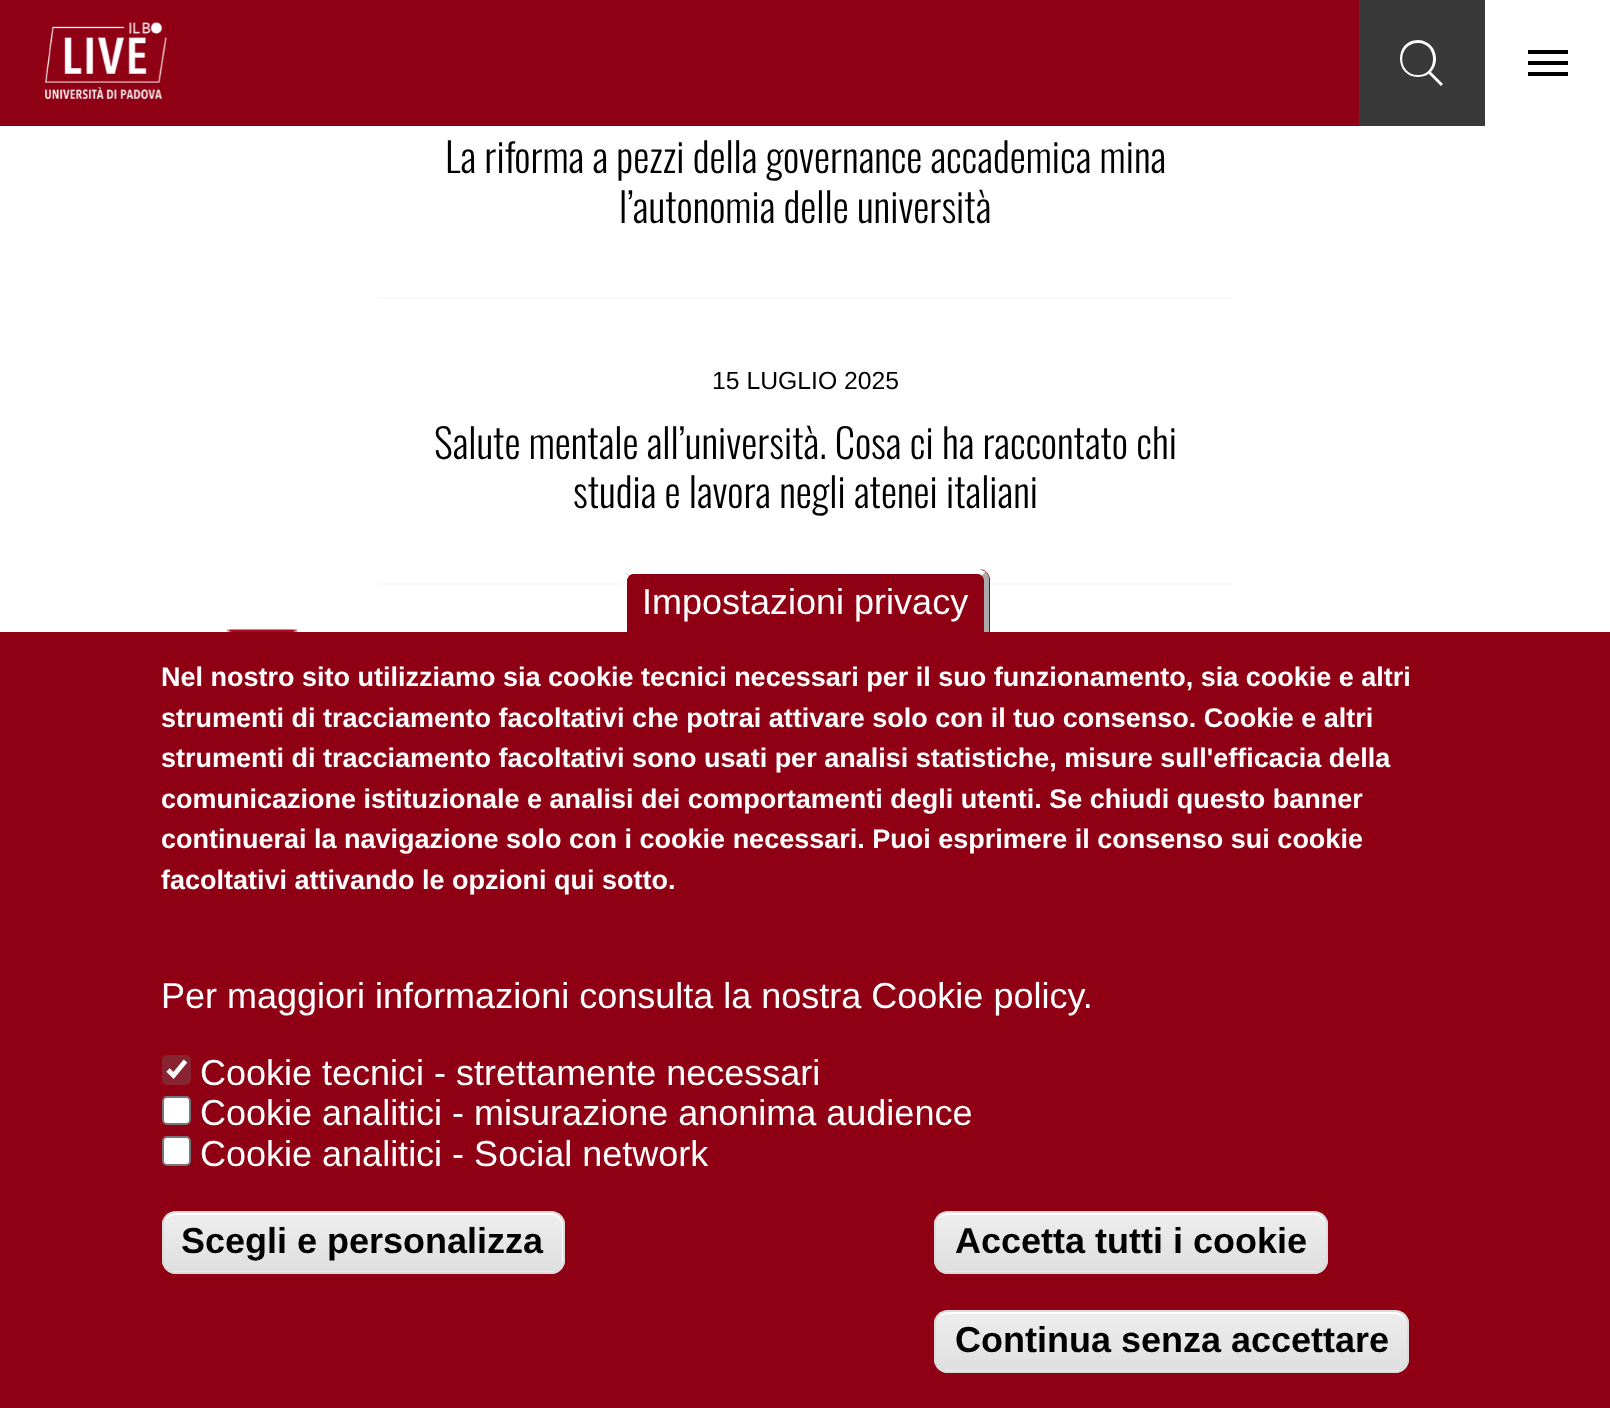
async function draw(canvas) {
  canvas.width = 1610
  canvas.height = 1408
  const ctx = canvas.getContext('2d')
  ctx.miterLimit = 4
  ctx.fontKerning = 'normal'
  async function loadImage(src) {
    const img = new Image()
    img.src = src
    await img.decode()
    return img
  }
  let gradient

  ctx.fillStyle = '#fff'
  ctx.fillRect(0, 0, 1610, 1408)
  ctx.fillStyle = '#900014'
  ctx.fillRect(0, 0, 1359, 126)
  ctx.drawImage(await loadImage('image0.png'), 45, 22, 122, 77)
  ctx.fillStyle = '#393939'
  ctx.fillRect(1359, 0, 126, 126)
  ctx.fillStyle = '#fff'
  ctx.beginPath()
  ctx.moveTo(1430, 71)
  ctx.lineTo(1443, 84)
  ctx.lineTo(1441, 86)
  ctx.lineTo(1428, 73)
  ctx.closePath()
  ctx.moveTo(1418, 77)
  ctx.bezierCurveTo(1394, 77, 1394, 40, 1418, 40)
  ctx.bezierCurveTo(1442, 41, 1442, 77, 1418, 77)
  ctx.closePath()
  ctx.moveTo(1418, 43)
  ctx.bezierCurveTo(1397, 43, 1397, 75, 1418, 75)
  ctx.bezierCurveTo(1438, 75, 1438, 43, 1418, 43)
  ctx.closePath()
  ctx.fill()
  ctx.fillStyle = '#000'
  ctx.beginPath()
  ctx.moveTo(1528, 76)
  ctx.lineTo(1568, 76)
  ctx.lineTo(1568, 72)
  ctx.lineTo(1528, 72)
  ctx.closePath()
  ctx.moveTo(1528, 65)
  ctx.lineTo(1568, 65)
  ctx.lineTo(1568, 61)
  ctx.lineTo(1528, 61)
  ctx.closePath()
  ctx.moveTo(1528, 50)
  ctx.lineTo(1528, 54)
  ctx.lineTo(1568, 54)
  ctx.lineTo(1568, 50)
  ctx.closePath()
  ctx.fill()
  ctx.fillStyle = '#f9f9f9'
  ctx.fillRect(378, 297, 855, 2)
  ctx.font = '300 40.5px Oswald'
  ctx.fillStyle = '#000'
  ctx.fillText('La riforma a pezzi della governance accademica mina', 445, 173)
  ctx.fillText('l’autonomia delle università', 619, 223)
  ctx.fillStyle = '#f9f9f9'
  ctx.fillRect(378, 583, 855, 2)
  ctx.font = '24.75px Liberation Sans'
  ctx.fillStyle = '#000'
  ctx.fillText('15 LUGLIO 2025', 712, 389)
  ctx.font = '300 40.5px Oswald'
  ctx.fillText('Salute mentale all’università. Cosa ci ha raccontato chi', 434, 459)
  ctx.fillText('studia e lavora negli atenei italiani', 573, 508)
  ctx.drawImage(await loadImage('image1.png'), 227, 629, 70, 3)
  ctx.fillStyle = '#900014'
  ctx.fillRect(0, 632, 1610, 776)
  ctx.beginPath()
  ctx.roundRect(623, 569, 367, 63, [11, 11, 0, 0])
  ctx.fill()
  ctx.fillStyle = '#fff'
  ctx.beginPath()
  ctx.moveTo(633, 574)
  ctx.bezierCurveTo(631, 574, 630, 575, 629, 576)
  ctx.lineTo(625, 572)
  ctx.bezierCurveTo(627, 571, 629, 570, 631, 569)
  ctx.lineTo(980, 569)
  ctx.bezierCurveTo(982, 570, 984, 571, 986, 572)
  ctx.lineTo(982, 576)
  ctx.bezierCurveTo(981, 575, 980, 574, 978, 574)
  ctx.closePath()
  ctx.fill()
  ctx.fillStyle = '#aaa'
  ctx.beginPath()
  ctx.moveTo(989, 579)
  ctx.lineTo(989, 632)
  ctx.lineTo(984, 632)
  ctx.lineTo(984, 580)
  ctx.bezierCurveTo(984, 579, 983, 577, 982, 576)
  ctx.lineTo(986, 572)
  ctx.bezierCurveTo(988, 574, 989, 576, 989, 579)
  ctx.closePath()
  ctx.fill()
  ctx.fillStyle = '#fff'
  ctx.beginPath()
  ctx.moveTo(622, 578)
  ctx.bezierCurveTo(623, 576, 624, 574, 625, 572)
  ctx.lineTo(629, 576)
  ctx.bezierCurveTo(628, 577, 627, 579, 627, 580)
  ctx.lineTo(627, 632)
  ctx.lineTo(622, 632)
  ctx.closePath()
  ctx.fill()
  ctx.font = '36px Liberation Sans'
  ctx.fillText('Impostazioni privacy', 642, 614)
  ctx.font = 'bold 27px Liberation Sans'
  ctx.fillText('Nel nostro sito utilizziamo sia cookie tecnici necessari per il suo funzionamento, sia cookie e altri', 161, 686)
  ctx.fillText('strumenti di tracciamento facoltativi che potrai attivare solo con il tuo consenso. Cookie e altri', 161, 727)
  ctx.fillText('strumenti di tracciamento facoltativi sono usati per analisi statistiche, misure sull\'efficacia della', 161, 767)
  ctx.fillText('comunicazione istituzionale e analisi dei comportamenti degli utenti. Se chiudi questo banner', 161, 808)
  ctx.fillText('continuerai la navigazione solo con i cookie necessari. Puoi esprimere il consenso sui cookie', 161, 848)
  ctx.fillText('facoltativi attivando le opzioni qui sotto.', 161, 889)
  ctx.font = '36px Liberation Sans'
  ctx.fillText('Per maggiori informazioni consulta la nostra Cookie policy.', 161, 1008)
  ctx.fillStyle = '#882331'
  ctx.beginPath()
  ctx.roundRect(162, 1055, 29, 30, 5)
  ctx.fill()
  ctx.beginPath()
  ctx.moveTo(168, 1070)
  ctx.lineTo(173.5, 1075.5)
  ctx.lineTo(185.5, 1061)
  ctx.strokeStyle = '#fff'
  ctx.lineWidth = 4.7
  ctx.stroke()
  ctx.fillStyle = '#fff'
  ctx.fillText('Cookie tecnici - strettamente necessari', 200, 1085)
  ctx.beginPath()
  ctx.roundRect(163, 1097, 27, 27, 4)
  ctx.fill()
  ctx.strokeStyle = '#767676'
  ctx.lineWidth = 2
  ctx.stroke()
  ctx.fillText('Cookie analitici - misurazione anonima audience', 200, 1125)
  ctx.beginPath()
  ctx.roundRect(163, 1137, 27, 28, 4)
  ctx.fill()
  ctx.stroke()
  ctx.fillText('Cookie analitici - Social network', 200, 1166)
  ctx.save()
  ctx.beginPath()
  ctx.roundRect(162, 1211, 403, 63, 14)
  ctx.clip()
  gradient = ctx.createLinearGradient(363, 1213, 363, 1271)
  gradient.addColorStop(0.05, '#ededed')
  gradient.addColorStop(1, '#dfdfdf')
  ctx.fillStyle = gradient
  ctx.fillRect(162, 1213, 403, 58)
  gradient = ctx.createLinearGradient(363, 1271, 363, 1330)
  gradient.addColorStop(0.05, '#ededed')
  gradient.addColorStop(1, '#dfdfdf')
  ctx.fillStyle = gradient
  ctx.fillRect(162, 1271, 403, 3)
  ctx.restore()
  ctx.beginPath()
  ctx.moveTo(176, 1215)
  ctx.lineTo(551, 1215)
  ctx.bezierCurveTo(557, 1215, 562, 1220, 562, 1226)
  ctx.lineTo(562, 1262)
  ctx.lineTo(561, 1266)
  ctx.bezierCurveTo(562, 1264, 563, 1262, 563, 1260)
  ctx.lineTo(563, 1224)
  ctx.bezierCurveTo(563, 1218, 558, 1213, 552, 1213)
  ctx.lineTo(175, 1213)
  ctx.bezierCurveTo(169, 1213, 164, 1218, 164, 1224)
  ctx.lineTo(164, 1226)
  ctx.bezierCurveTo(164, 1220, 169, 1215, 176, 1215)
  ctx.closePath()
  ctx.fill()
  ctx.beginPath()
  ctx.roundRect(163, 1212, 401, 61, 13)
  ctx.strokeStyle = '#dcdcdc'
  ctx.stroke()
  ctx.font = 'bold 36px Liberation Sans'
  ctx.fillStyle = '#000'
  ctx.fillText('Scegli e personalizza', 181, 1253)
  ctx.save()
  ctx.beginPath()
  ctx.roundRect(934, 1211, 394, 63, 14)
  ctx.clip()
  gradient = ctx.createLinearGradient(1131, 1213, 1131, 1271)
  gradient.addColorStop(0.05, '#ededed')
  gradient.addColorStop(1, '#dfdfdf')
  ctx.fillStyle = gradient
  ctx.fillRect(934, 1213, 394, 58)
  gradient = ctx.createLinearGradient(1131, 1271, 1131, 1330)
  gradient.addColorStop(0.05, '#ededed')
  gradient.addColorStop(1, '#dfdfdf')
  ctx.fillStyle = gradient
  ctx.fillRect(934, 1271, 394, 3)
  ctx.restore()
  ctx.fillStyle = '#fff'
  ctx.beginPath()
  ctx.moveTo(947, 1215)
  ctx.lineTo(1314, 1215)
  ctx.bezierCurveTo(1320, 1215, 1325, 1220, 1325, 1226)
  ctx.bezierCurveTo(1325, 1219, 1321, 1213, 1314, 1213)
  ctx.lineTo(945, 1213)
  ctx.bezierCurveTo(938, 1215, 936, 1220, 936, 1226)
  ctx.bezierCurveTo(936, 1220, 941, 1215, 947, 1215)
  ctx.closePath()
  ctx.fill()
  ctx.beginPath()
  ctx.roundRect(935, 1212, 392, 61, 13)
  ctx.stroke()
  ctx.fillStyle = '#000'
  ctx.fillText('Accetta tutti i cookie', 955, 1253)
  ctx.save()
  ctx.beginPath()
  ctx.roundRect(934, 1310, 475, 63, 14)
  ctx.clip()
  gradient = ctx.createLinearGradient(1171, 1312, 1171, 1370)
  gradient.addColorStop(0.05, '#ededed')
  gradient.addColorStop(1, '#dfdfdf')
  ctx.fillStyle = gradient
  ctx.fillRect(934, 1312, 475, 58)
  gradient = ctx.createLinearGradient(1171, 1370, 1171, 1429)
  gradient.addColorStop(0.05, '#ededed')
  gradient.addColorStop(1, '#dfdfdf')
  ctx.fillStyle = gradient
  ctx.fillRect(934, 1370, 475, 3)
  ctx.restore()
  ctx.fillStyle = '#fff'
  ctx.beginPath()
  ctx.moveTo(947, 1314)
  ctx.lineTo(1395, 1314)
  ctx.bezierCurveTo(1401, 1314, 1406, 1319, 1406, 1325)
  ctx.bezierCurveTo(1406, 1318, 1402, 1312, 1395, 1312)
  ctx.lineTo(945, 1312)
  ctx.bezierCurveTo(938, 1314, 936, 1319, 936, 1325)
  ctx.bezierCurveTo(936, 1319, 941, 1314, 947, 1314)
  ctx.closePath()
  ctx.fill()
  ctx.beginPath()
  ctx.roundRect(935, 1311, 473, 61, 13)
  ctx.stroke()
  ctx.fillStyle = '#000'
  ctx.fillText('Continua senza accettare', 955, 1352)
}

draw(document.querySelector('canvas'))
